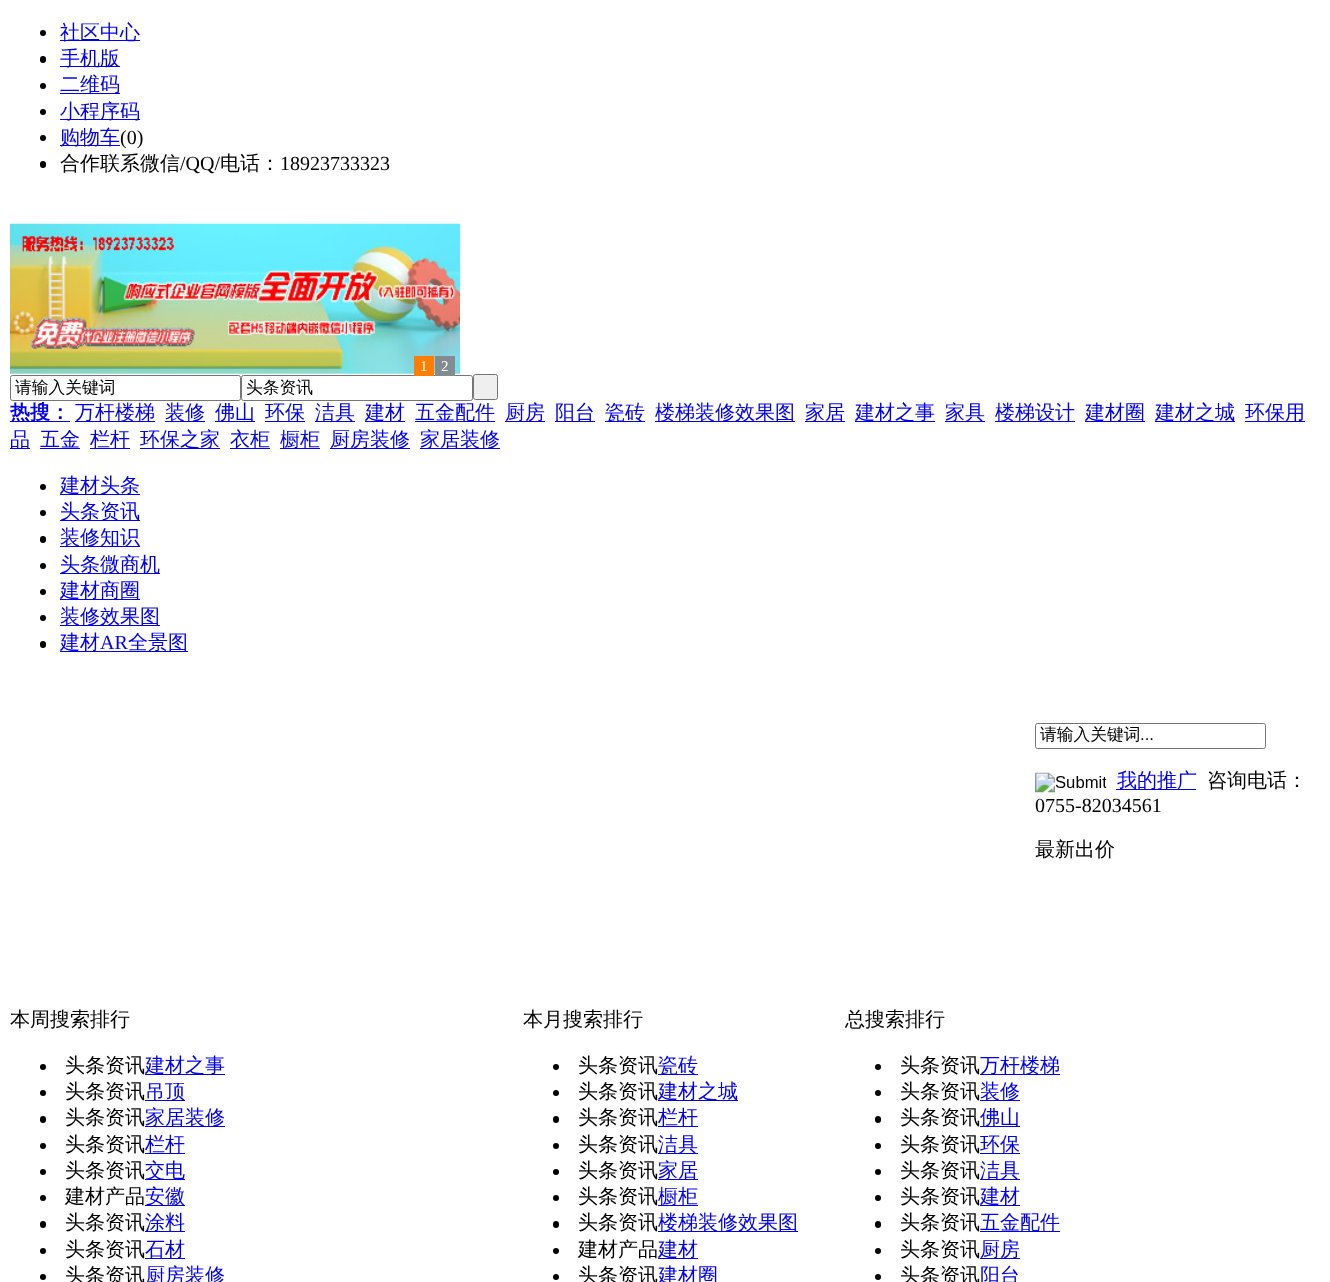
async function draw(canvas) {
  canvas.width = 1330
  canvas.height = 1282
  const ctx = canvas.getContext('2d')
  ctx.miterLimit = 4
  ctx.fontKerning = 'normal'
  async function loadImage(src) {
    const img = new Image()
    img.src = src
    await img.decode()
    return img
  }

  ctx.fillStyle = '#fff'
  ctx.fillRect(0, 0, 1330, 1282)
  ctx.fillStyle = '#000'
  ctx.beginPath()
  ctx.arc(43, 33, 3, 0, 2 * Math.PI)
  ctx.fill()
  ctx.fillStyle = '#00e'
  ctx.fillRect(60, 40, 80, 1)
  ctx.font = '500 20px WenQuanYi Zen Hei'
  ctx.fillText('社区中心', 60, 39)
  ctx.fillStyle = '#000'
  ctx.beginPath()
  ctx.roundRect(40, 56, 6, 7, 3)
  ctx.fill()
  ctx.fillStyle = '#00e'
  ctx.fillRect(60, 66, 60, 1)
  ctx.fillText('手机版', 60, 65)
  ctx.fillStyle = '#000'
  ctx.beginPath()
  ctx.arc(43, 86, 3, 0, 2 * Math.PI)
  ctx.fill()
  ctx.fillStyle = '#00e'
  ctx.fillRect(60, 93, 60, 1)
  ctx.fillText('二维码', 60, 91)
  ctx.fillStyle = '#000'
  ctx.beginPath()
  ctx.arc(43, 112, 3, 0, 2 * Math.PI)
  ctx.fill()
  ctx.fillStyle = '#00e'
  ctx.fillRect(60, 119, 80, 1)
  ctx.fillText('小程序码', 60, 118)
  ctx.fillStyle = '#000'
  ctx.beginPath()
  ctx.arc(43, 138, 3, 0, 2 * Math.PI)
  ctx.fill()
  ctx.fillStyle = '#00e'
  ctx.fillRect(60, 145, 60, 1)
  ctx.fillText('购物车', 60, 144)
  ctx.font = '20px Liberation Serif'
  ctx.fillStyle = '#000'
  ctx.fillText('(0)', 120, 144)
  ctx.beginPath()
  ctx.roundRect(40, 161, 6, 7, 3)
  ctx.fill()
  ctx.font = '500 20px WenQuanYi Zen Hei'
  ctx.fillText('合作联系微信', 60, 170)
  ctx.font = '20px Liberation Serif'
  ctx.fillText('/QQ/', 180, 170)
  ctx.font = '500 20px WenQuanYi Zen Hei'
  ctx.fillText('电话：', 220, 170)
  ctx.font = '20px Liberation Serif'
  ctx.fillText('18923733323', 280, 170)
  ctx.drawImage(await loadImage('image0.png'), 10, 223, 450, 151)
  ctx.beginPath()
  ctx.roundRect(241.5, 375.5, 231, 25, 2)
  ctx.strokeStyle = '#767676'
  ctx.stroke()
  ctx.fillStyle = '#ff7e00'
  ctx.fillRect(414, 356, 20, 20)
  ctx.font = '15px Liberation Serif'
  ctx.fillStyle = '#fff'
  ctx.fillText('1', 420, 371)
  ctx.fillStyle = '#838b90'
  ctx.fillRect(435, 356, 20, 20)
  ctx.fillStyle = '#fff'
  ctx.fillText('2', 441, 371)
  ctx.beginPath()
  ctx.roundRect(10.5, 375.5, 230, 25, 2)
  ctx.stroke()
  ctx.font = '500 16.75px WenQuanYi Zen Hei'
  ctx.fillStyle = '#000'
  ctx.fillText('请输入关键词', 15, 393)
  ctx.fillText('头条资讯', 246, 393)
  ctx.fillStyle = '#efefef'
  ctx.beginPath()
  ctx.roundRect(473.5, 374.5, 24, 25, 2)
  ctx.fill()
  ctx.stroke()
  ctx.fillStyle = '#00e'
  ctx.fillRect(10, 421, 60, 1)
  ctx.font = 'bold 20px WenQuanYi Zen Hei'
  ctx.fillText('热搜：', 10, 419)
  ctx.fillRect(75, 421, 80, 1)
  ctx.font = '500 20px WenQuanYi Zen Hei'
  ctx.fillText('万杆楼梯', 75, 419)
  ctx.fillRect(165, 421, 40, 1)
  ctx.fillText('装修', 165, 419)
  ctx.fillRect(215, 421, 40, 1)
  ctx.fillText('佛山', 215, 419)
  ctx.fillRect(265, 421, 40, 1)
  ctx.fillText('环保', 265, 419)
  ctx.fillRect(315, 421, 40, 1)
  ctx.fillText('洁具', 315, 419)
  ctx.fillRect(365, 421, 40, 1)
  ctx.fillText('建材', 365, 419)
  ctx.fillRect(415, 421, 80, 1)
  ctx.fillText('五金配件', 415, 419)
  ctx.fillRect(505, 421, 40, 1)
  ctx.fillText('厨房', 505, 419)
  ctx.fillRect(555, 421, 40, 1)
  ctx.fillText('阳台', 555, 419)
  ctx.fillRect(605, 421, 40, 1)
  ctx.fillText('瓷砖', 605, 419)
  ctx.fillRect(655, 421, 140, 1)
  ctx.fillText('楼梯装修效果图', 655, 419)
  ctx.fillRect(805, 421, 40, 1)
  ctx.fillText('家居', 805, 419)
  ctx.fillRect(855, 421, 80, 1)
  ctx.fillText('建材之事', 855, 419)
  ctx.fillRect(945, 421, 40, 1)
  ctx.fillText('家具', 945, 419)
  ctx.fillRect(995, 421, 80, 1)
  ctx.fillText('楼梯设计', 995, 419)
  ctx.fillRect(1085, 421, 60, 1)
  ctx.fillText('建材圈', 1085, 419)
  ctx.fillRect(1155, 421, 80, 1)
  ctx.fillText('建材之城', 1155, 419)
  ctx.fillRect(1245, 421, 60, 1)
  ctx.fillText('环保用', 1245, 419)
  ctx.fillRect(10, 448, 20, 1)
  ctx.fillText('品', 10, 446)
  ctx.fillText('五金', 40, 446)
  ctx.fillRect(40, 448, 40, 1)
  ctx.fillRect(90, 448, 40, 1)
  ctx.fillText('栏杆', 90, 446)
  ctx.fillRect(140, 448, 80, 1)
  ctx.fillText('环保之家', 140, 446)
  ctx.fillRect(230, 448, 40, 1)
  ctx.fillText('衣柜', 230, 446)
  ctx.fillRect(280, 448, 40, 1)
  ctx.fillText('橱柜', 280, 446)
  ctx.fillRect(330, 448, 80, 1)
  ctx.fillText('厨房装修', 330, 446)
  ctx.fillRect(420, 448, 80, 1)
  ctx.fillText('家居装修', 420, 446)
  ctx.fillStyle = '#000'
  ctx.beginPath()
  ctx.arc(43, 487, 3, 0, 2 * Math.PI)
  ctx.fill()
  ctx.fillStyle = '#00e'
  ctx.fillRect(60, 494, 80, 1)
  ctx.fillText('建材头条', 60, 492)
  ctx.fillStyle = '#000'
  ctx.beginPath()
  ctx.arc(43, 513, 3, 0, 2 * Math.PI)
  ctx.fill()
  ctx.fillStyle = '#00e'
  ctx.fillRect(60, 520, 80, 1)
  ctx.fillText('头条资讯', 60, 518)
  ctx.fillStyle = '#000'
  ctx.beginPath()
  ctx.roundRect(40, 536, 6, 7, 3)
  ctx.fill()
  ctx.fillStyle = '#00e'
  ctx.fillRect(60, 546, 80, 1)
  ctx.fillText('装修知识', 60, 544)
  ctx.fillStyle = '#000'
  ctx.beginPath()
  ctx.arc(43, 566, 3, 0, 2 * Math.PI)
  ctx.fill()
  ctx.fillStyle = '#00e'
  ctx.fillRect(60, 573, 100, 1)
  ctx.fillText('头条微商机', 60, 571)
  ctx.fillStyle = '#000'
  ctx.beginPath()
  ctx.arc(43, 592, 3, 0, 2 * Math.PI)
  ctx.fill()
  ctx.fillStyle = '#00e'
  ctx.fillRect(60, 599, 80, 1)
  ctx.fillText('建材商圈', 60, 597)
  ctx.fillStyle = '#000'
  ctx.beginPath()
  ctx.arc(43, 618, 3, 0, 2 * Math.PI)
  ctx.fill()
  ctx.fillStyle = '#00e'
  ctx.fillRect(60, 625, 100, 1)
  ctx.fillText('装修效果图', 60, 623)
  ctx.fillStyle = '#000'
  ctx.beginPath()
  ctx.roundRect(40, 641, 6, 7, 3)
  ctx.fill()
  ctx.fillStyle = '#00e'
  ctx.fillRect(60, 651, 128, 1)
  ctx.fillText('建材', 60, 649)
  ctx.font = '20px Liberation Serif'
  ctx.fillText('AR', 100, 649)
  ctx.font = '500 20px WenQuanYi Zen Hei'
  ctx.fillText('全景图', 128, 649)
  ctx.beginPath()
  ctx.roundRect(1035.5, 723.5, 230, 25, 2)
  ctx.stroke()
  ctx.font = '500 16.75px WenQuanYi Zen Hei'
  ctx.fillStyle = '#000'
  ctx.fillText('请输入关键词', 1040, 740)
  ctx.font = '16.75px Liberation Sans'
  ctx.fillText('...', 1140, 740)
  ctx.drawImage(await loadImage('image1.png'), 1035, 772, 72, 21)
  ctx.fillStyle = '#00e'
  ctx.fillRect(1116, 789, 80, 1)
  ctx.font = '500 20px WenQuanYi Zen Hei'
  ctx.fillText('我的推广', 1117, 787)
  ctx.fillStyle = '#000'
  ctx.fillText('咨询电话：', 1207, 787)
  ctx.font = '20px Liberation Serif'
  ctx.fillText('0755-82034561', 1035, 812)
  ctx.font = '500 20px WenQuanYi Zen Hei'
  ctx.fillText('最新出价', 1035, 856)
  ctx.fillText('本周搜索排行', 10, 1026)
  ctx.beginPath()
  ctx.arc(43, 1067, 3, 0, 2 * Math.PI)
  ctx.fill()
  ctx.fillText('头条资讯', 65, 1072)
  ctx.fillStyle = '#00e'
  ctx.fillRect(145, 1074, 80, 1)
  ctx.fillText('建材之事', 145, 1072)
  ctx.fillStyle = '#000'
  ctx.beginPath()
  ctx.arc(43, 1093, 3, 0, 2 * Math.PI)
  ctx.fill()
  ctx.fillText('头条资讯', 65, 1098)
  ctx.fillStyle = '#00e'
  ctx.fillRect(145, 1100, 40, 1)
  ctx.fillText('吊顶', 145, 1098)
  ctx.fillStyle = '#000'
  ctx.beginPath()
  ctx.roundRect(40, 1116, 6, 7, 3)
  ctx.fill()
  ctx.fillText('头条资讯', 65, 1124)
  ctx.fillStyle = '#00e'
  ctx.fillRect(145, 1126, 80, 1)
  ctx.fillText('家居装修', 145, 1124)
  ctx.fillStyle = '#000'
  ctx.beginPath()
  ctx.arc(43, 1146, 3, 0, 2 * Math.PI)
  ctx.fill()
  ctx.fillText('头条资讯', 65, 1151)
  ctx.fillStyle = '#00e'
  ctx.fillRect(145, 1153, 40, 1)
  ctx.fillText('栏杆', 145, 1151)
  ctx.fillStyle = '#000'
  ctx.beginPath()
  ctx.arc(43, 1172, 3, 0, 2 * Math.PI)
  ctx.fill()
  ctx.fillText('头条资讯', 65, 1177)
  ctx.fillStyle = '#00e'
  ctx.fillRect(145, 1179, 40, 1)
  ctx.fillText('交电', 145, 1177)
  ctx.fillStyle = '#000'
  ctx.beginPath()
  ctx.arc(43, 1198, 3, 0, 2 * Math.PI)
  ctx.fill()
  ctx.fillText('建材产品', 65, 1203)
  ctx.fillStyle = '#00e'
  ctx.fillRect(145, 1205, 40, 1)
  ctx.fillText('安徽', 145, 1203)
  ctx.fillStyle = '#000'
  ctx.beginPath()
  ctx.roundRect(40, 1221, 6, 7, 3)
  ctx.fill()
  ctx.fillText('头条资讯', 65, 1229)
  ctx.fillStyle = '#00e'
  ctx.fillRect(145, 1231, 40, 1)
  ctx.fillText('涂料', 145, 1229)
  ctx.fillStyle = '#000'
  ctx.beginPath()
  ctx.arc(43, 1251, 3, 0, 2 * Math.PI)
  ctx.fill()
  ctx.fillText('头条资讯', 65, 1256)
  ctx.fillStyle = '#00e'
  ctx.fillRect(145, 1258, 40, 1)
  ctx.fillText('石材', 145, 1256)
  ctx.fillStyle = '#000'
  ctx.beginPath()
  ctx.arc(43, 1277, 3, 0, 2 * Math.PI)
  ctx.fill()
  ctx.fillText('头条资讯', 65, 1282)
  ctx.fillStyle = '#00e'
  ctx.fillText('厨房装修', 145, 1282)
  ctx.fillStyle = '#000'
  ctx.fillText('本月搜索排行', 523, 1026)
  ctx.beginPath()
  ctx.arc(556, 1067, 3, 0, 2 * Math.PI)
  ctx.fill()
  ctx.fillText('头条资讯', 578, 1072)
  ctx.fillStyle = '#00e'
  ctx.fillRect(658, 1074, 40, 1)
  ctx.fillText('瓷砖', 658, 1072)
  ctx.fillStyle = '#000'
  ctx.beginPath()
  ctx.arc(556, 1093, 3, 0, 2 * Math.PI)
  ctx.fill()
  ctx.fillText('头条资讯', 578, 1098)
  ctx.fillStyle = '#00e'
  ctx.fillRect(658, 1100, 80, 1)
  ctx.fillText('建材之城', 658, 1098)
  ctx.fillStyle = '#000'
  ctx.beginPath()
  ctx.roundRect(553, 1116, 6, 7, 3)
  ctx.fill()
  ctx.fillText('头条资讯', 578, 1124)
  ctx.fillStyle = '#00e'
  ctx.fillRect(658, 1126, 40, 1)
  ctx.fillText('栏杆', 658, 1124)
  ctx.fillStyle = '#000'
  ctx.beginPath()
  ctx.arc(556, 1146, 3, 0, 2 * Math.PI)
  ctx.fill()
  ctx.fillText('头条资讯', 578, 1151)
  ctx.fillStyle = '#00e'
  ctx.fillRect(658, 1153, 40, 1)
  ctx.fillText('洁具', 658, 1151)
  ctx.fillStyle = '#000'
  ctx.beginPath()
  ctx.arc(556, 1172, 3, 0, 2 * Math.PI)
  ctx.fill()
  ctx.fillText('头条资讯', 578, 1177)
  ctx.fillStyle = '#00e'
  ctx.fillRect(658, 1179, 40, 1)
  ctx.fillText('家居', 658, 1177)
  ctx.fillStyle = '#000'
  ctx.beginPath()
  ctx.arc(556, 1198, 3, 0, 2 * Math.PI)
  ctx.fill()
  ctx.fillText('头条资讯', 578, 1203)
  ctx.fillStyle = '#00e'
  ctx.fillRect(658, 1205, 40, 1)
  ctx.fillText('橱柜', 658, 1203)
  ctx.fillStyle = '#000'
  ctx.beginPath()
  ctx.roundRect(553, 1221, 6, 7, 3)
  ctx.fill()
  ctx.fillText('头条资讯', 578, 1229)
  ctx.fillStyle = '#00e'
  ctx.fillRect(658, 1231, 140, 1)
  ctx.fillText('楼梯装修效果图', 658, 1229)
  ctx.fillStyle = '#000'
  ctx.beginPath()
  ctx.arc(556, 1251, 3, 0, 2 * Math.PI)
  ctx.fill()
  ctx.fillText('建材产品', 578, 1256)
  ctx.fillStyle = '#00e'
  ctx.fillRect(658, 1258, 40, 1)
  ctx.fillText('建材', 658, 1256)
  ctx.fillStyle = '#000'
  ctx.beginPath()
  ctx.arc(556, 1277, 3, 0, 2 * Math.PI)
  ctx.fill()
  ctx.fillText('头条资讯', 578, 1282)
  ctx.fillStyle = '#00e'
  ctx.fillText('建材圈', 658, 1282)
  ctx.fillStyle = '#000'
  ctx.fillText('总搜索排行', 845, 1026)
  ctx.beginPath()
  ctx.arc(878, 1067, 3, 0, 2 * Math.PI)
  ctx.fill()
  ctx.fillText('头条资讯', 900, 1072)
  ctx.fillStyle = '#00e'
  ctx.fillRect(980, 1074, 80, 1)
  ctx.fillText('万杆楼梯', 980, 1072)
  ctx.fillStyle = '#000'
  ctx.beginPath()
  ctx.arc(878, 1093, 3, 0, 2 * Math.PI)
  ctx.fill()
  ctx.fillText('头条资讯', 900, 1098)
  ctx.fillStyle = '#00e'
  ctx.fillRect(980, 1100, 40, 1)
  ctx.fillText('装修', 980, 1098)
  ctx.fillStyle = '#000'
  ctx.beginPath()
  ctx.roundRect(875, 1116, 6, 7, 3)
  ctx.fill()
  ctx.fillText('头条资讯', 900, 1124)
  ctx.fillStyle = '#00e'
  ctx.fillRect(980, 1126, 40, 1)
  ctx.fillText('佛山', 980, 1124)
  ctx.fillStyle = '#000'
  ctx.beginPath()
  ctx.arc(878, 1146, 3, 0, 2 * Math.PI)
  ctx.fill()
  ctx.fillText('头条资讯', 900, 1151)
  ctx.fillStyle = '#00e'
  ctx.fillRect(980, 1153, 40, 1)
  ctx.fillText('环保', 980, 1151)
  ctx.fillStyle = '#000'
  ctx.beginPath()
  ctx.arc(878, 1172, 3, 0, 2 * Math.PI)
  ctx.fill()
  ctx.fillText('头条资讯', 900, 1177)
  ctx.fillStyle = '#00e'
  ctx.fillRect(980, 1179, 40, 1)
  ctx.fillText('洁具', 980, 1177)
  ctx.fillStyle = '#000'
  ctx.beginPath()
  ctx.arc(878, 1198, 3, 0, 2 * Math.PI)
  ctx.fill()
  ctx.fillText('头条资讯', 900, 1203)
  ctx.fillStyle = '#00e'
  ctx.fillRect(980, 1205, 40, 1)
  ctx.fillText('建材', 980, 1203)
  ctx.fillStyle = '#000'
  ctx.beginPath()
  ctx.roundRect(875, 1221, 6, 7, 3)
  ctx.fill()
  ctx.fillText('头条资讯', 900, 1229)
  ctx.fillStyle = '#00e'
  ctx.fillRect(980, 1231, 80, 1)
  ctx.fillText('五金配件', 980, 1229)
  ctx.fillStyle = '#000'
  ctx.beginPath()
  ctx.arc(878, 1251, 3, 0, 2 * Math.PI)
  ctx.fill()
  ctx.fillText('头条资讯', 900, 1256)
  ctx.fillStyle = '#00e'
  ctx.fillRect(980, 1258, 40, 1)
  ctx.fillText('厨房', 980, 1256)
  ctx.fillStyle = '#000'
  ctx.beginPath()
  ctx.arc(878, 1277, 3, 0, 2 * Math.PI)
  ctx.fill()
  ctx.fillText('头条资讯', 900, 1282)
  ctx.fillStyle = '#00e'
  ctx.fillText('阳台', 980, 1282)
}

draw(document.querySelector('canvas'))
